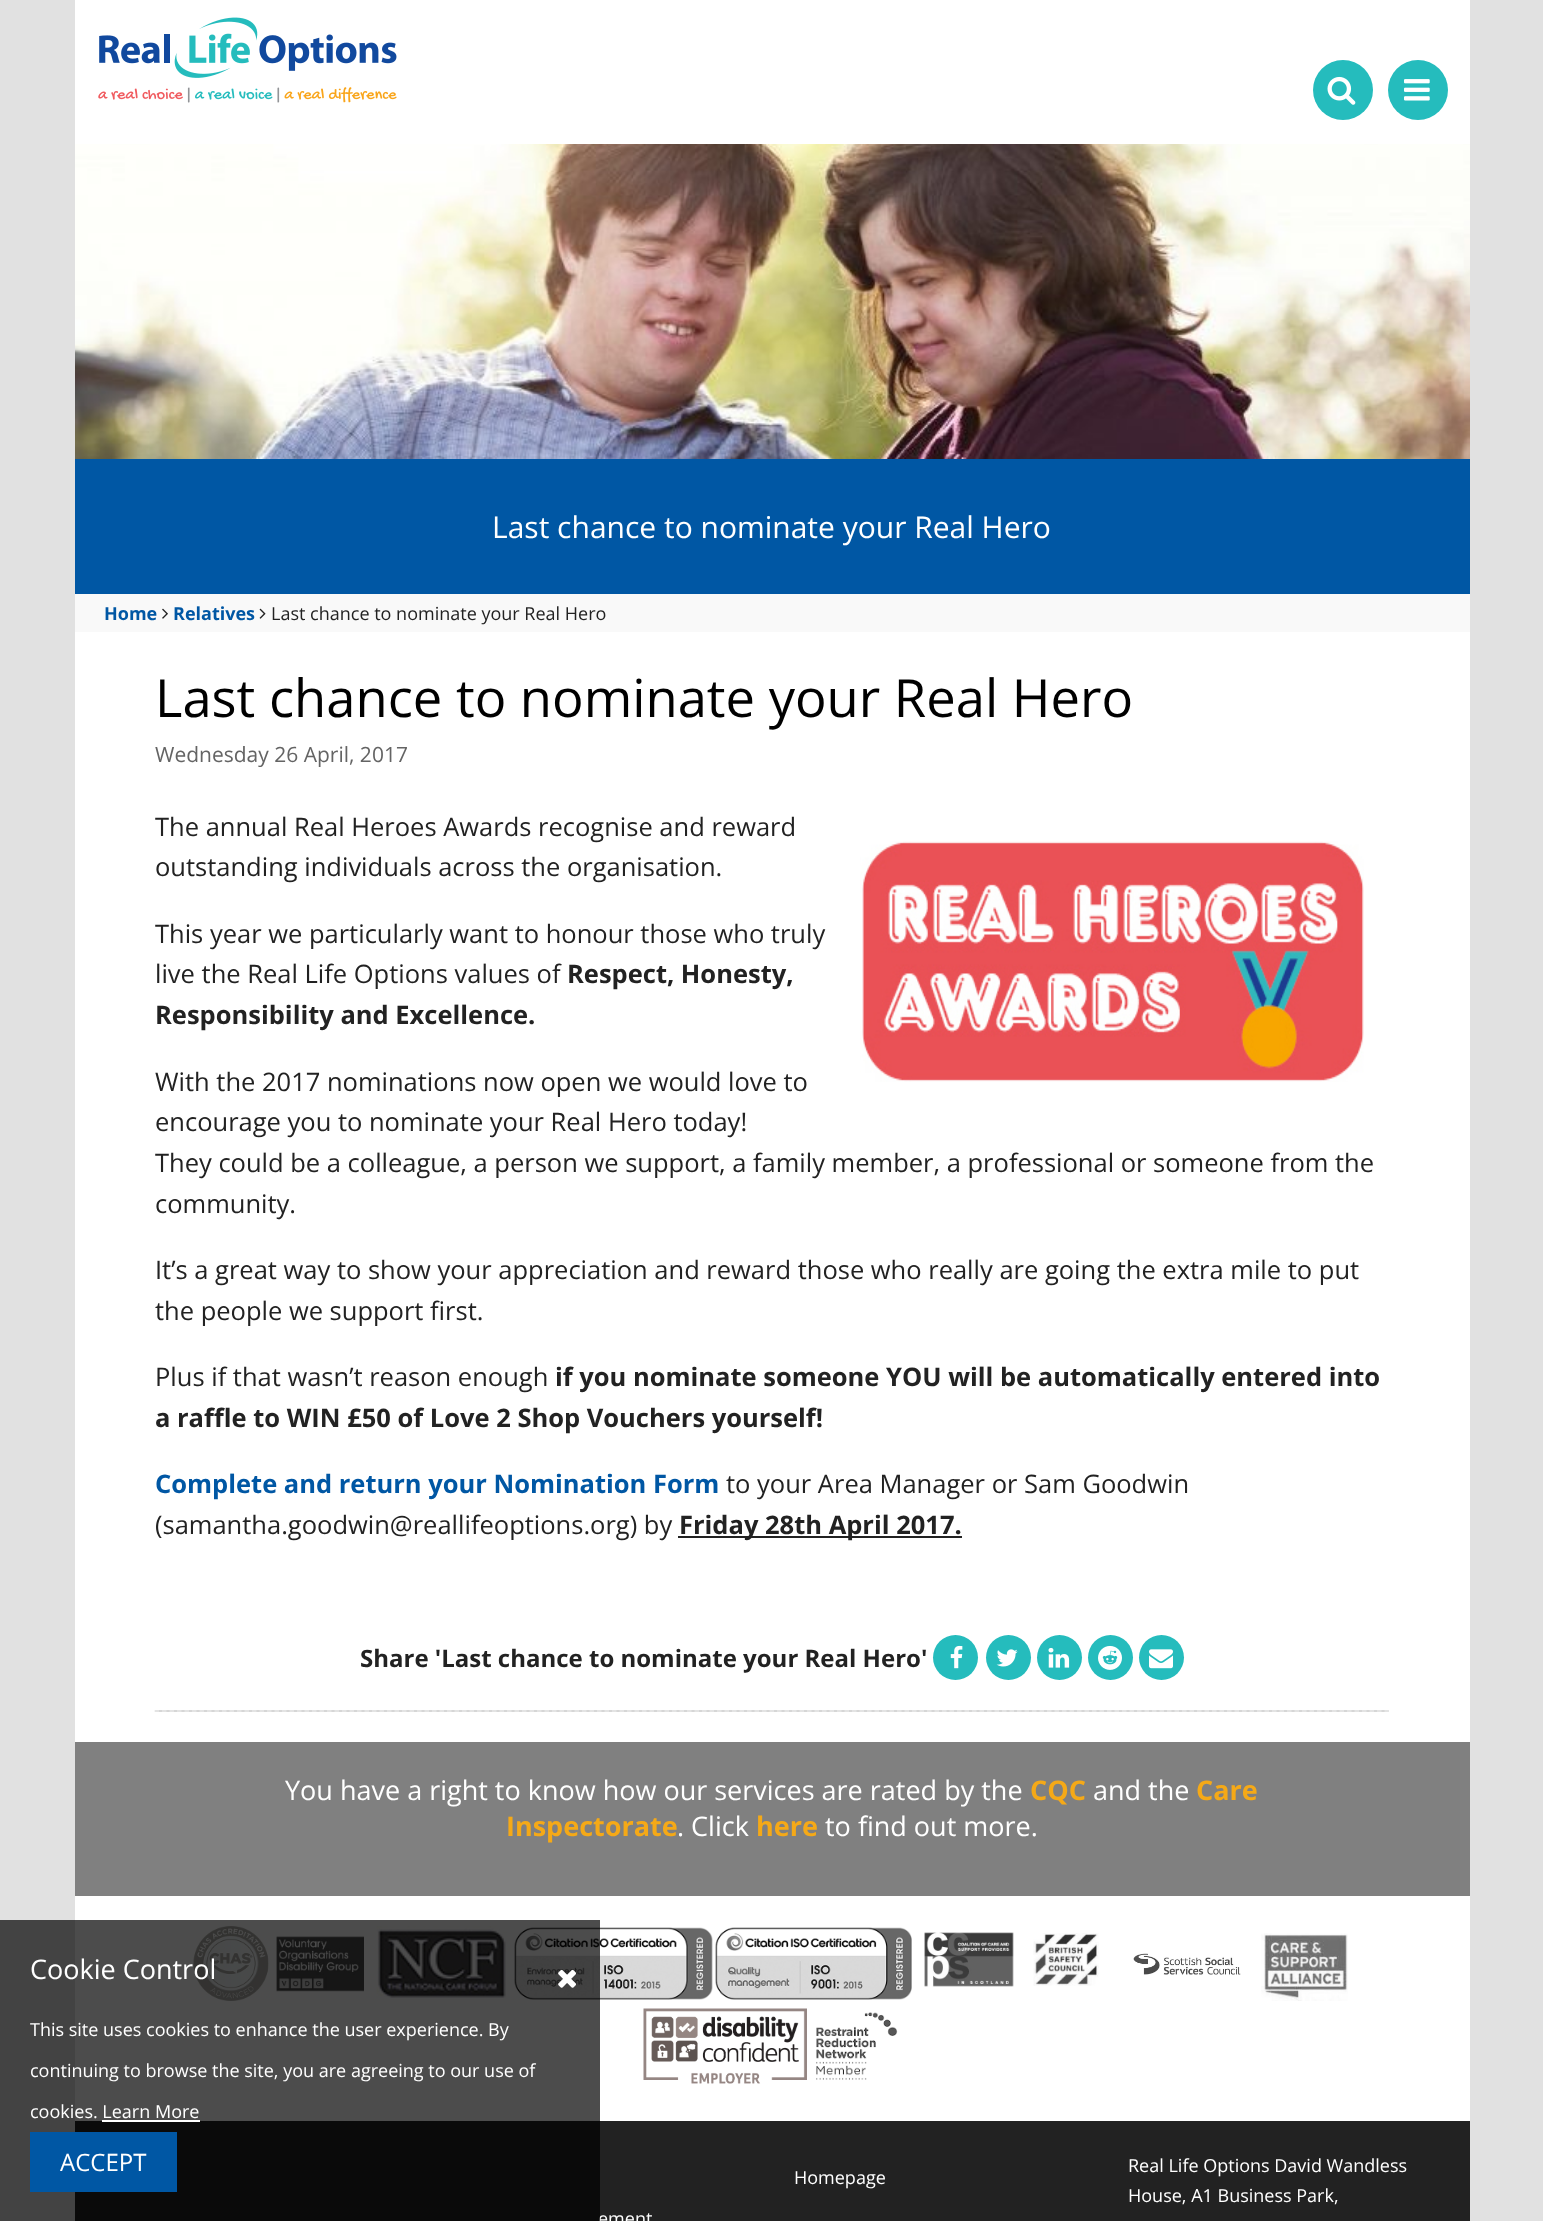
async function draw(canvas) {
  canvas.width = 1543
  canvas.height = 2221
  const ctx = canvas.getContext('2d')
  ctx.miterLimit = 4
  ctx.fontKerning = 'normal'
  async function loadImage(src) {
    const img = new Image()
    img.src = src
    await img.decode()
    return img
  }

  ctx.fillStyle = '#e1e1e1'
  ctx.fillRect(0, 0, 1543, 2221)
  ctx.fillStyle = '#fff'
  ctx.fillRect(75, 0, 1395, 144)
  ctx.drawImage(await loadImage('image0.png'), 98, 17, 299, 86)
  ctx.fillStyle = '#25bcbd'
  ctx.beginPath()
  ctx.arc(1343, 90, 30, 0, 2 * Math.PI)
  ctx.fill()
  ctx.drawImage(await loadImage('image1.png'), 1327, 76, 29, 29)
  ctx.beginPath()
  ctx.arc(1418, 90, 30, 0, 2 * Math.PI)
  ctx.fill()
  ctx.drawImage(await loadImage('image2.png'), 1404, 79, 26, 22)
  ctx.drawImage(await loadImage('image3.png'), 75, 144, 1395, 315)
  ctx.fillStyle = '#0057a4'
  ctx.fillRect(75, 459, 1395, 135)
  ctx.font = '30px Open Sans'
  ctx.fillStyle = '#fff'
  ctx.fillText('Last chance to nominate your Real Hero', 492, 538)
  ctx.fillStyle = '#f9f9f9'
  ctx.fillRect(75, 594, 1395, 38)
  ctx.font = 'bold 18px Open Sans'
  ctx.fillStyle = '#0057a4'
  ctx.fillText('Home', 104, 620)
  ctx.drawImage(await loadImage('image4.png'), 162, 608, 6, 11)
  ctx.fillText('Relatives', 173, 620)
  ctx.drawImage(await loadImage('image5.png'), 259, 608, 7, 11)
  ctx.font = '18px Open Sans'
  ctx.fillStyle = '#222'
  ctx.fillText('Last chance to nominate your Real Hero', 271, 620)
  ctx.fillStyle = '#fff'
  ctx.fillRect(75, 632, 1395, 1110)
  ctx.font = '52.5px Open Sans'
  ctx.fillStyle = '#000'
  ctx.fillText('Last chance to nominate your Real Hero', 155, 717)
  ctx.font = '21px Open Sans'
  ctx.fillStyle = '#646464'
  ctx.fillText('Wednesday 26 April, 2017', 155, 762)
  ctx.font = '25.5px Open Sans'
  ctx.fillStyle = '#222'
  ctx.fillText('The annual Real Heroes Awards recognise and reward', 155, 836)
  ctx.fillText('outstanding individuals across the organisation.', 155, 876)
  ctx.drawImage(await loadImage('image6.png'), 860, 841, 504, 241)
  ctx.fillText('This year we particularly want to honour those who truly', 155, 943)
  ctx.fillText('live the Real Life Options values of', 155, 983)
  ctx.font = 'bold 25.5px Open Sans'
  ctx.fillText('Respect, Honesty,', 567, 983)
  ctx.fillText('Responsibility and Excellence.', 155, 1024)
  ctx.font = '25.5px Open Sans'
  ctx.fillText('With the 2017 nominations now open we would love to', 155, 1091)
  ctx.fillText('encourage you to nominate your Real Hero today!', 155, 1131)
  ctx.fillText('They could be a colleague, a person we support, a family member, a professional or someone from the', 155, 1172)
  ctx.fillText('community.', 155, 1213)
  ctx.fillText('It’s a great way to show your appreciation and reward those who really are going the extra mile to put', 155, 1279)
  ctx.fillText('the people we support first.', 155, 1320)
  ctx.fillText('Plus if that wasn’t reason enough', 155, 1386)
  ctx.font = 'bold 25.5px Open Sans'
  ctx.fillText('if you nominate someone YOU will be automatically entered into', 555, 1386)
  ctx.fillText('a raffle to WIN £50 of Love 2 Shop Vouchers yourself!', 155, 1427)
  ctx.fillStyle = '#0057a4'
  ctx.fillText('Complete and return your Nomination Form', 155, 1493)
  ctx.font = '25.5px Open Sans'
  ctx.fillStyle = '#222'
  ctx.fillText('to your Area Manager or Sam Goodwin', 726, 1493)
  ctx.fillText('(samantha.goodwin@reallifeoptions.org) by', 155, 1534)
  ctx.fillRect(678, 1536, 284, 2)
  ctx.font = 'bold 25.5px Open Sans'
  ctx.fillText('Friday 28th April 2017.', 679, 1534)
  ctx.font = 'bold 24px Open Sans'
  ctx.fillText('Share \'Last chance to nominate your Real Hero\'', 360, 1667)
  ctx.fillStyle = '#25bcbd'
  ctx.beginPath()
  ctx.arc(955.5, 1657.5, 22.5, 0, 2 * Math.PI)
  ctx.fill()
  ctx.drawImage(await loadImage('image7.png'), 950, 1645, 13, 24)
  ctx.beginPath()
  ctx.arc(1008.5, 1657.5, 22.5, 0, 2 * Math.PI)
  ctx.fill()
  ctx.drawImage(await loadImage('image8.png'), 996, 1649, 22, 18)
  ctx.beginPath()
  ctx.arc(1059.5, 1657.5, 22.5, 0, 2 * Math.PI)
  ctx.fill()
  ctx.drawImage(await loadImage('image9.png'), 1048, 1647, 22, 21)
  ctx.beginPath()
  ctx.arc(1110.5, 1657.5, 22.5, 0, 2 * Math.PI)
  ctx.fill()
  ctx.drawImage(await loadImage('image10.png'), 1098, 1645, 24, 25)
  ctx.beginPath()
  ctx.arc(1161.5, 1657.5, 22.5, 0, 2 * Math.PI)
  ctx.fill()
  ctx.drawImage(await loadImage('image11.png'), 1149, 1649, 24, 20)
  ctx.fillStyle = '#d6d6d6'
  ctx.fillRect(155, 1710, 1234, 2)
  ctx.beginPath()
  ctx.moveTo(154.5, 1711)
  ctx.lineTo(1389, 1711)
  ctx.strokeStyle = '#e7e8e8'
  ctx.lineWidth = 1.5
  ctx.setLineDash([4.5, 3])
  ctx.stroke()
  ctx.fillStyle = '#808080'
  ctx.fillRect(75, 1742, 1395, 154)
  ctx.font = '27px Open Sans'
  ctx.fillStyle = '#fff'
  ctx.fillText('You have a right to know how our services are rated by the', 285, 1800)
  ctx.font = 'bold 27px Open Sans'
  ctx.fillStyle = '#f5a917'
  ctx.fillText('CQC', 1030, 1800)
  ctx.font = '27px Open Sans'
  ctx.fillStyle = '#fff'
  ctx.fillText('and the', 1093, 1800)
  ctx.font = 'bold 27px Open Sans'
  ctx.fillStyle = '#f5a917'
  ctx.fillText('Care', 1196, 1800)
  ctx.fillText('Inspectorate', 506, 1836)
  ctx.font = '27px Open Sans'
  ctx.fillStyle = '#fff'
  ctx.fillText('. Click', 677, 1836)
  ctx.font = 'bold 27px Open Sans'
  ctx.fillStyle = '#f5a917'
  ctx.fillText('here', 756, 1836)
  ctx.font = '27px Open Sans'
  ctx.fillStyle = '#fff'
  ctx.fillText('to find out more.', 825, 1836)
  ctx.fillRect(75, 1896, 1395, 225)
  ctx.drawImage(await loadImage('image12.png'), 193, 1926, 76, 75)
  ctx.drawImage(await loadImage('image13.png'), 268, 1936, 96, 56)
  ctx.drawImage(await loadImage('image14.png'), 376, 1926, 131, 72)
  ctx.drawImage(await loadImage('image15.png'), 514, 1927, 199, 73)
  ctx.drawImage(await loadImage('image16.png'), 715, 1927, 197, 73)
  ctx.drawImage(await loadImage('image17.png'), 924, 1932, 90, 55)
  ctx.drawImage(await loadImage('image18.png'), 1033, 1933, 66, 53)
  ctx.drawImage(await loadImage('image19.png'), 1133, 1953, 108, 22)
  ctx.drawImage(await loadImage('image20.png'), 1261, 1933, 87, 68)
  ctx.drawImage(await loadImage('image21.png'), 643, 2008, 164, 76)
  ctx.drawImage(await loadImage('image22.png'), 816, 2012, 82, 68)
  ctx.fillStyle = '#222'
  ctx.fillRect(75, 2121, 1395, 100)
  ctx.font = '18px Open Sans'
  ctx.fillStyle = '#fff'
  ctx.fillText('ement', 598, 2225)
  ctx.fillStyle = '#000000b3'
  ctx.fillRect(0, 1920, 600, 301)
  ctx.font = '27px Open Sans'
  ctx.fillStyle = '#fff'
  ctx.fillText('Cookie Control', 30, 1979)
  ctx.drawImage(await loadImage('image23.png'), 558, 1969, 18, 19)
  ctx.font = '18px Open Sans'
  ctx.fillText('This site uses cookies to enhance the user experience. By', 30, 2036)
  ctx.fillText('continuing to browse the site, you are agreeing to our use of', 30, 2077)
  ctx.fillText('cookies. Learn More', 30, 2118)
  ctx.fillRect(102, 2120, 98, 2)
  ctx.fillStyle = '#0057a4'
  ctx.fillRect(30, 2132, 147, 60)
  ctx.font = '24px Open Sans'
  ctx.fillStyle = '#fff'
  ctx.fillText('ACCEPT', 60, 2171)
  ctx.font = '18px Open Sans'
  ctx.fillText('Homepage', 794, 2184)
  ctx.fillText('Real Life Options David Wandless', 1128, 2172)
  ctx.fillText('House, A1 Business Park,', 1128, 2202)
}

draw(document.querySelector('canvas'))
